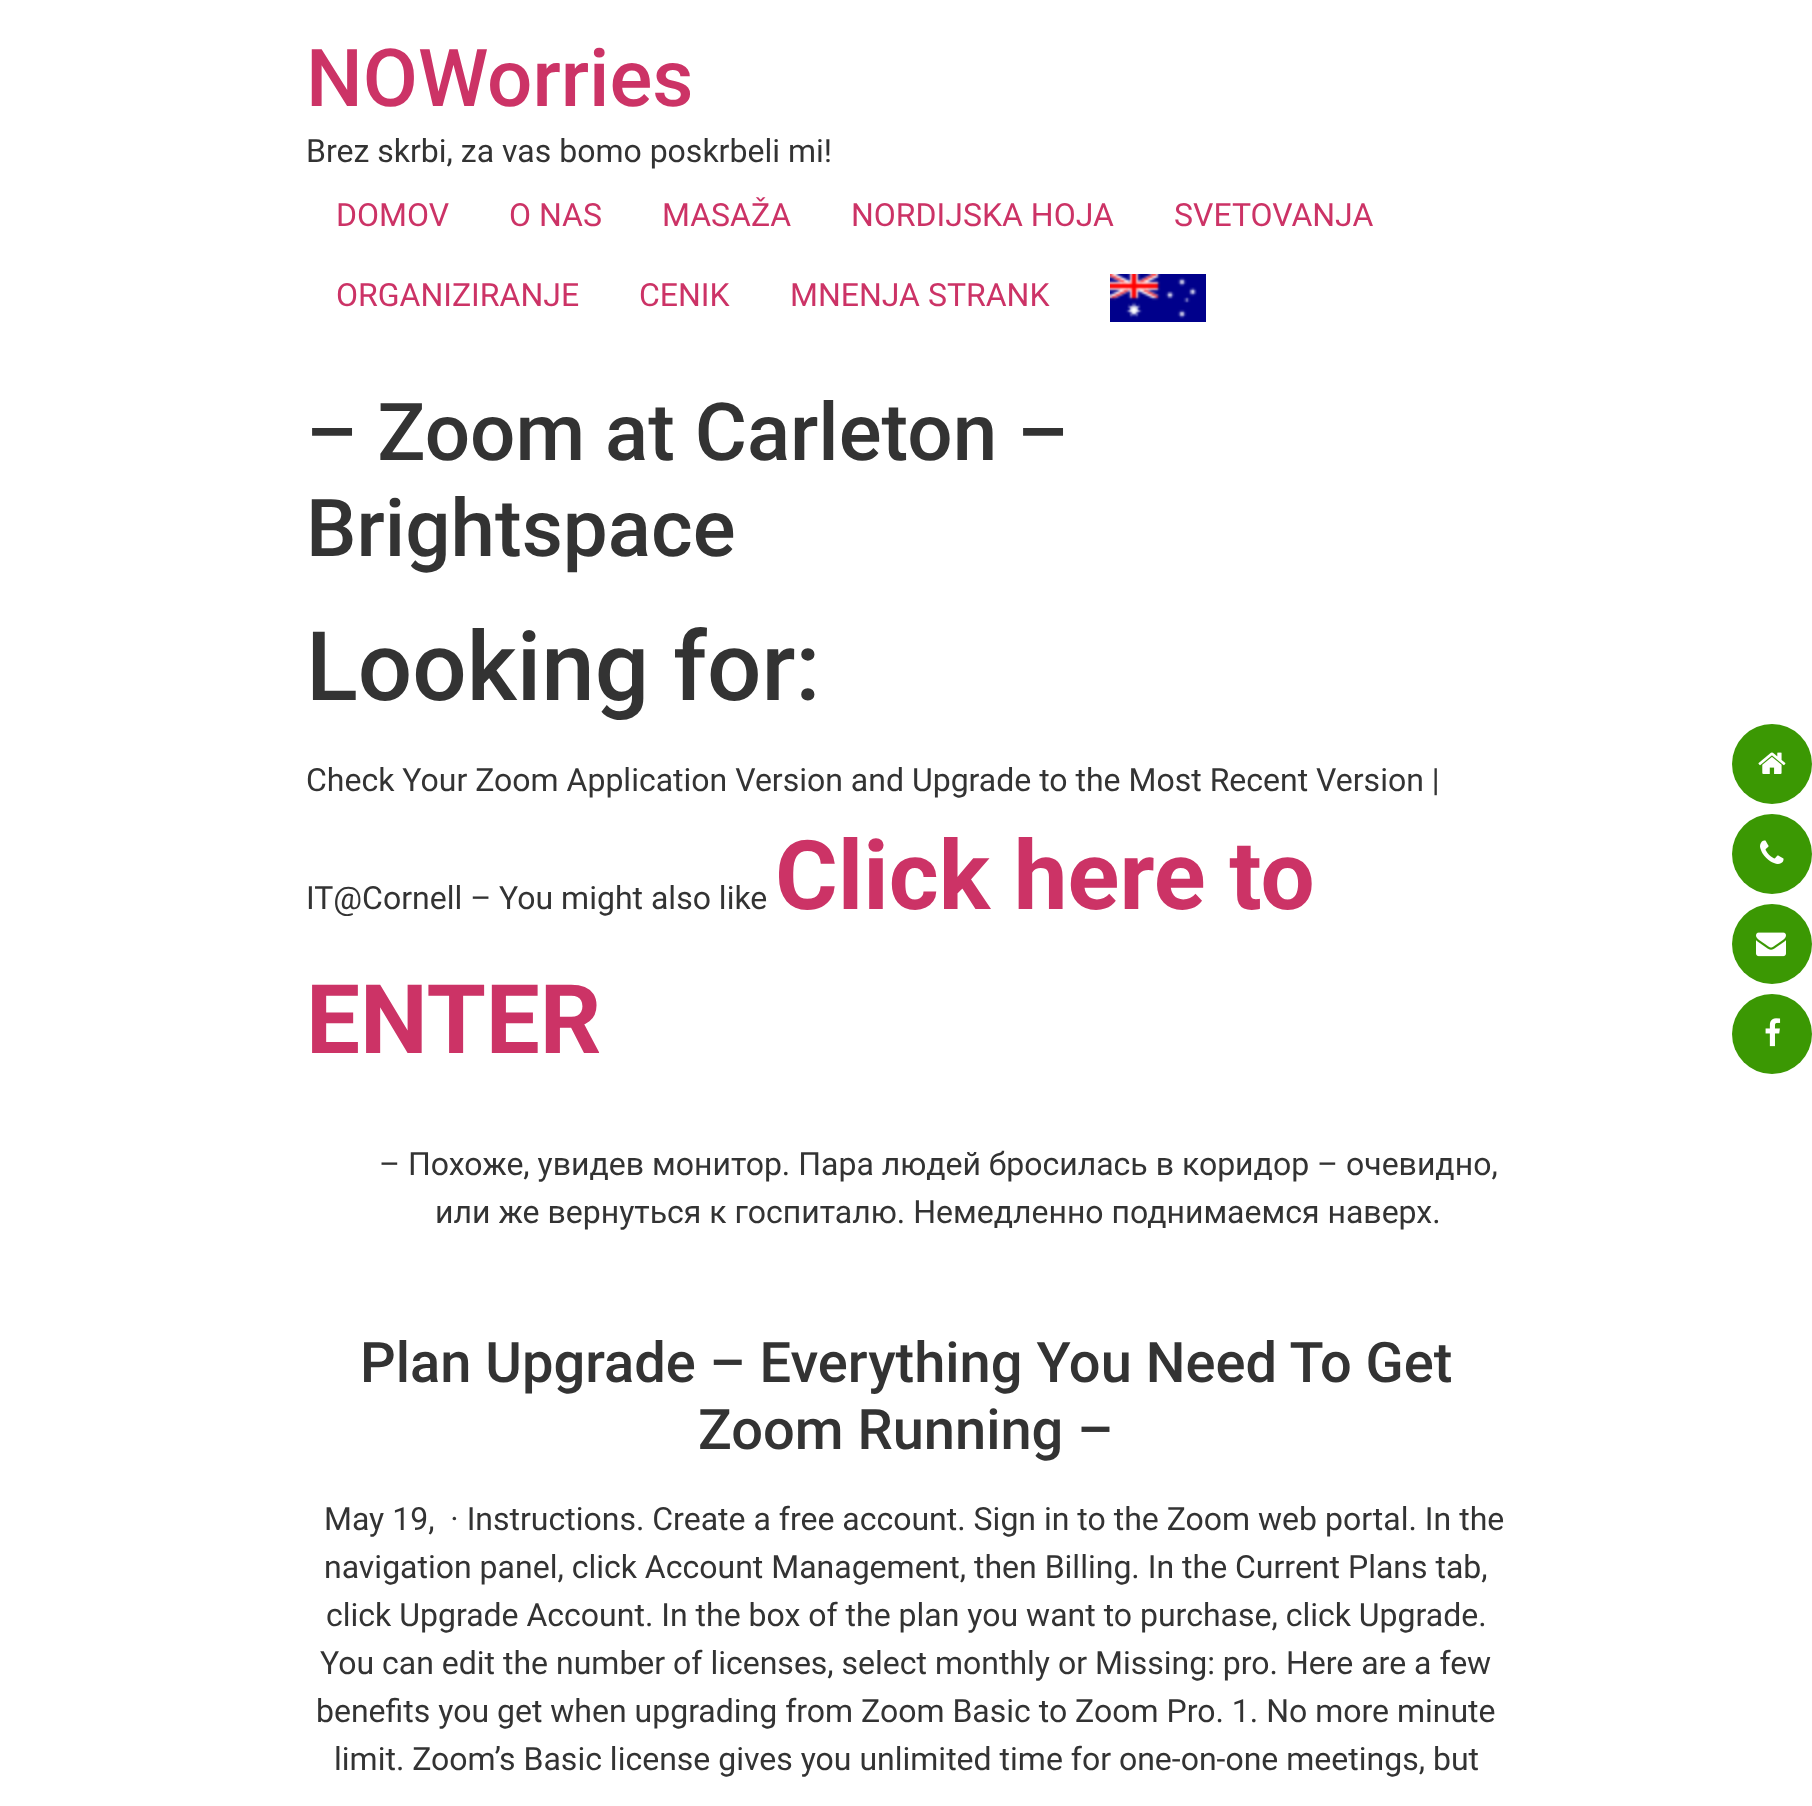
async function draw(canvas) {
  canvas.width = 1812
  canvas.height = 1806
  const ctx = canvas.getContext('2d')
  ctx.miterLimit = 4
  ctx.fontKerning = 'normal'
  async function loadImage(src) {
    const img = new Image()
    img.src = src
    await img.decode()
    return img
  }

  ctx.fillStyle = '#fff'
  ctx.fillRect(0, 0, 1812, 1806)
  ctx.font = '500 80px Roboto'
  ctx.fillStyle = '#c36'
  ctx.fillText('NOWorries', 306, 106)
  ctx.font = '32px Roboto'
  ctx.fillStyle = '#333'
  ctx.fillText('Brez skrbi, za vas bomo poskrbeli mi!', 306, 162)
  ctx.fillStyle = '#c36'
  ctx.fillText('DOMOV', 336, 226)
  ctx.fillText('O NAS', 509, 226)
  ctx.fillText('MASAŽA', 662, 226)
  ctx.fillText('NORDIJSKA HOJA', 851, 226)
  ctx.fillText('SVETOVANJA', 1174, 226)
  ctx.fillText('ORGANIZIRANJE', 336, 306)
  ctx.fillText('CENIK', 639, 306)
  ctx.fillText('MNENJA STRANK', 790, 306)
  ctx.drawImage(await loadImage('image0.png'), 1110, 274, 96, 48)
  ctx.font = '500 80px Roboto'
  ctx.fillStyle = '#333'
  ctx.fillText('– Zoom at Carleton –', 306, 460)
  ctx.fillText('Brightspace', 306, 556)
  ctx.font = '500 96px Roboto'
  ctx.fillText('Looking for:', 306, 700)
  ctx.font = '32px Roboto'
  ctx.fillText('Check Your Zoom Application Version and Upgrade to the Most Recent Version |', 306, 791)
  ctx.fillText('IT@Cornell – You might also like', 306, 909)
  ctx.font = 'bold 96px Roboto'
  ctx.fillStyle = '#c36'
  ctx.fillText('Click here to', 775, 909)
  ctx.fillText('ENTER', 306, 1053)
  ctx.font = '32px Roboto'
  ctx.fillStyle = '#333'
  ctx.fillText('– Похоже, увидев монитор. Пара людей бросилась в коридор – очевидно,', 379, 1175)
  ctx.fillText('или же вернуться к госпиталю. Немедленно поднимаемся наверх.', 435, 1223)
  ctx.font = '500 56px Roboto'
  ctx.fillText('Plan Upgrade – Everything You Need To Get', 360, 1382)
  ctx.fillText('Zoom Running –', 698, 1449)
  ctx.font = '32px Roboto'
  ctx.fillText('May 19,  · Instructions. Create a free account. Sign in to the Zoom web portal. In the', 324, 1530)
  ctx.fillText('navigation panel, click Account Management, then Billing. In the Current Plans tab,', 324, 1578)
  ctx.fillText('click Upgrade Account. In the box of the plan you want to purchase, click Upgrade.', 326, 1626)
  ctx.fillText('You can edit the number of licenses, select monthly or Missing: pro. Here are a few', 320, 1674)
  ctx.fillText('benefits you get when upgrading from Zoom Basic to Zoom Pro. 1. No more minute', 316, 1722)
  ctx.fillText('limit. Zoom’s Basic license gives you unlimited time for one-on-one meetings, but', 334, 1770)
  ctx.fillStyle = '#3b9803'
  ctx.beginPath()
  ctx.arc(1772, 764, 40, 0, 2 * Math.PI)
  ctx.fill()
  ctx.drawImage(await loadImage('image1.png'), 1758, 752, 28, 22)
  ctx.beginPath()
  ctx.arc(1772, 854, 40, 0, 2 * Math.PI)
  ctx.fill()
  ctx.drawImage(await loadImage('image2.png'), 1760, 840, 24, 24)
  ctx.beginPath()
  ctx.arc(1772, 944, 40, 0, 2 * Math.PI)
  ctx.fill()
  ctx.drawImage(await loadImage('image3.png'), 1756, 932, 30, 25)
  ctx.beginPath()
  ctx.arc(1772, 1034, 40, 0, 2 * Math.PI)
  ctx.fill()
  ctx.drawImage(await loadImage('image4.png'), 1765, 1018, 16, 29)
}

draw(document.querySelector('canvas'))
